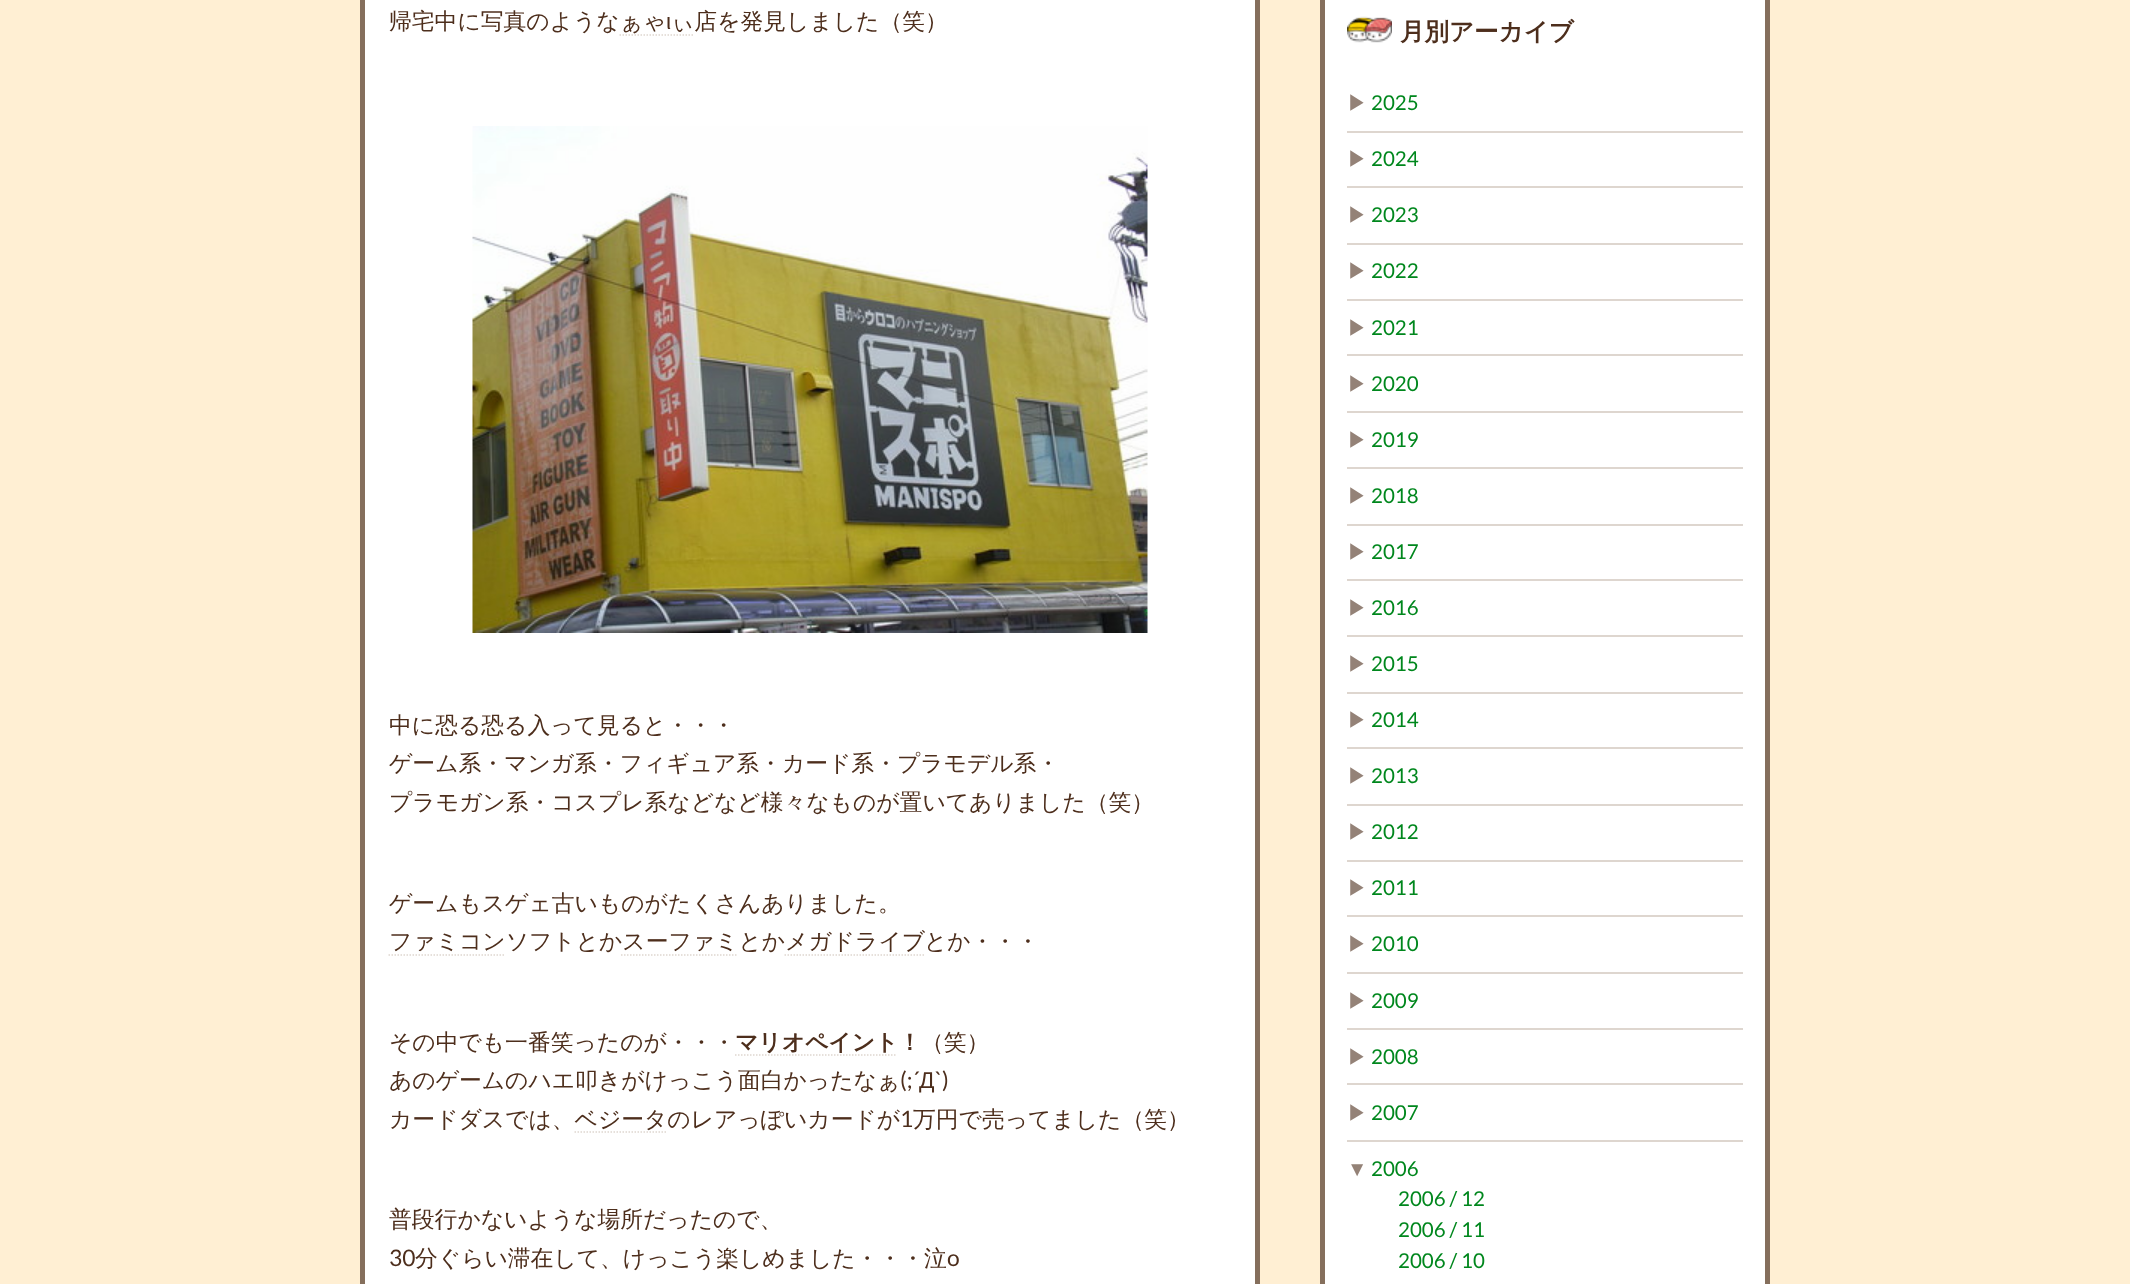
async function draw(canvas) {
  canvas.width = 2130
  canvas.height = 1284
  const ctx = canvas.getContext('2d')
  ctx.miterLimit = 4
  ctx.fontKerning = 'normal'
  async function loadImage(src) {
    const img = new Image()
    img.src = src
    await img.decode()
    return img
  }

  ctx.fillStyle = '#ffefd3'
  ctx.fillRect(0, 0, 2130, 1284)
  ctx.fillStyle = '#fff'
  ctx.beginPath()
  ctx.rect(362.5, -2.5, 895, 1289)
  ctx.fill()
  ctx.strokeStyle = '#856f5c'
  ctx.lineWidth = 5
  ctx.stroke()
  ctx.font = '500 22.8px WenQuanYi Zen Hei'
  ctx.fillStyle = '#4d2e1c'
  ctx.fillText('帰宅中に写真のようなぁゃ', 389, 29)
  ctx.font = '22.8px Liberation Sans'
  ctx.fillText('ι', 666, 29)
  ctx.beginPath()
  ctx.moveTo(619.5, 35)
  ctx.lineTo(694.5, 35)
  ctx.strokeStyle = '#ded6cf'
  ctx.lineWidth = 1.5
  ctx.setLineDash([1.5, 1.5])
  ctx.stroke()
  ctx.font = '500 22.8px WenQuanYi Zen Hei'
  ctx.fillText('ぃ店を発見しました（笑）', 671, 29)
  ctx.drawImage(await loadImage('image0.png'), 472, 126, 676, 507)
  ctx.fillText('中に恐る恐る入って見ると・・・', 389, 733)
  ctx.fillText('ゲーム系・マンガ系・フィギュア系・カード系・プラモデル系・', 389, 771)
  ctx.fillText('プラモガン系・コスプレ系などなど様々なものが置いてありました（笑）', 389, 810)
  ctx.fillText('ゲームもスゲェ古いものがたくさんありました。', 389, 911)
  ctx.fillText('ファミコンソフトとかスーファミとかメガドライブ', 389, 949)
  ctx.beginPath()
  ctx.moveTo(388.5, 955)
  ctx.lineTo(505.5, 955)
  ctx.stroke()
  ctx.fillText('とか・・・', 924, 949)
  ctx.beginPath()
  ctx.moveTo(621, 955)
  ctx.lineTo(738, 955)
  ctx.stroke()
  ctx.beginPath()
  ctx.moveTo(784.5, 955)
  ctx.lineTo(924, 955)
  ctx.stroke()
  ctx.fillText('その中でも一番笑ったのが・・・', 389, 1050)
  ctx.font = 'bold 22.8px WenQuanYi Zen Hei'
  ctx.fillText('マリオペイント！', 735, 1050)
  ctx.beginPath()
  ctx.moveTo(735, 1055)
  ctx.lineTo(897, 1055)
  ctx.stroke()
  ctx.font = '500 22.8px WenQuanYi Zen Hei'
  ctx.fillText('（笑）', 921, 1050)
  ctx.fillText('あのゲームのハエ叩きがけっこう面白かったなぁ', 389, 1088)
  ctx.font = '22.8px Lato'
  ctx.fillText('(;´', 900, 1088)
  ctx.font = '22.8px Liberation Sans'
  ctx.fillText('Д', 919, 1088)
  ctx.font = '22.8px Lato'
  ctx.fillText('`)', 935, 1088)
  ctx.font = '500 22.8px WenQuanYi Zen Hei'
  ctx.fillText('カードダスでは、ベジータのレアっぽいカードが', 389, 1127)
  ctx.font = '22.8px Lato'
  ctx.fillText('1', 900, 1127)
  ctx.font = '500 22.8px WenQuanYi Zen Hei'
  ctx.fillText('万円で売ってました（笑）', 913, 1127)
  ctx.beginPath()
  ctx.moveTo(574.5, 1132)
  ctx.lineTo(666, 1132)
  ctx.stroke()
  ctx.fillText('普段行かないような場所だったので、', 389, 1227)
  ctx.font = '22.8px Lato'
  ctx.fillText('30', 389, 1266)
  ctx.font = '500 22.8px WenQuanYi Zen Hei'
  ctx.fillText('分ぐらい滞在して、けっこう楽しめました・・・泣', 415, 1266)
  ctx.font = '22.8px Lato'
  ctx.fillText('o', 947, 1266)
  ctx.fillStyle = '#fff'
  ctx.beginPath()
  ctx.rect(1322.5, -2.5, 445, 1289)
  ctx.fill()
  ctx.strokeStyle = '#856f5c'
  ctx.lineWidth = 5
  ctx.setLineDash([])
  ctx.stroke()
  ctx.drawImage(await loadImage('image1.png'), 1347, 16, 45, 27)
  ctx.font = 'bold 24.5px WenQuanYi Zen Hei'
  ctx.fillStyle = '#4d2e1c'
  ctx.fillText('月別アーカイブ', 1400, 40)
  ctx.fillStyle = '#ded6cf'
  ctx.fillRect(1347, 131, 396, 2)
  ctx.font = '500 20.5px WenQuanYi Zen Hei'
  ctx.fillStyle = '#948277'
  ctx.fillText('▶', 1347, 110)
  ctx.font = '20.5px Lato'
  ctx.fillStyle = '#00871d'
  ctx.fillText('2025', 1371, 110)
  ctx.fillStyle = '#ded6cf'
  ctx.fillRect(1347, 186, 396, 2)
  ctx.font = '500 20.5px WenQuanYi Zen Hei'
  ctx.fillStyle = '#948277'
  ctx.fillText('▶', 1347, 166)
  ctx.font = '20.5px Lato'
  ctx.fillStyle = '#00871d'
  ctx.fillText('2024', 1371, 166)
  ctx.fillStyle = '#ded6cf'
  ctx.fillRect(1347, 243, 396, 2)
  ctx.font = '500 20.5px WenQuanYi Zen Hei'
  ctx.fillStyle = '#948277'
  ctx.fillText('▶', 1347, 222)
  ctx.font = '20.5px Lato'
  ctx.fillStyle = '#00871d'
  ctx.fillText('2023', 1371, 222)
  ctx.fillStyle = '#ded6cf'
  ctx.fillRect(1347, 299, 396, 2)
  ctx.font = '500 20.5px WenQuanYi Zen Hei'
  ctx.fillStyle = '#948277'
  ctx.fillText('▶', 1347, 278)
  ctx.font = '20.5px Lato'
  ctx.fillStyle = '#00871d'
  ctx.fillText('2022', 1371, 278)
  ctx.fillStyle = '#ded6cf'
  ctx.fillRect(1347, 354, 396, 2)
  ctx.font = '500 20.5px WenQuanYi Zen Hei'
  ctx.fillStyle = '#948277'
  ctx.fillText('▶', 1347, 335)
  ctx.font = '20.5px Lato'
  ctx.fillStyle = '#00871d'
  ctx.fillText('2021', 1371, 335)
  ctx.fillStyle = '#ded6cf'
  ctx.fillRect(1347, 411, 396, 2)
  ctx.font = '500 20.5px WenQuanYi Zen Hei'
  ctx.fillStyle = '#948277'
  ctx.fillText('▶', 1347, 391)
  ctx.font = '20.5px Lato'
  ctx.fillStyle = '#00871d'
  ctx.fillText('2020', 1371, 391)
  ctx.fillStyle = '#ded6cf'
  ctx.fillRect(1347, 467, 396, 2)
  ctx.font = '500 20.5px WenQuanYi Zen Hei'
  ctx.fillStyle = '#948277'
  ctx.fillText('▶', 1347, 447)
  ctx.font = '20.5px Lato'
  ctx.fillStyle = '#00871d'
  ctx.fillText('2019', 1371, 447)
  ctx.fillStyle = '#ded6cf'
  ctx.fillRect(1347, 524, 396, 2)
  ctx.font = '500 20.5px WenQuanYi Zen Hei'
  ctx.fillStyle = '#948277'
  ctx.fillText('▶', 1347, 503)
  ctx.font = '20.5px Lato'
  ctx.fillStyle = '#00871d'
  ctx.fillText('2018', 1371, 503)
  ctx.fillStyle = '#ded6cf'
  ctx.fillRect(1347, 579, 396, 2)
  ctx.font = '500 20.5px WenQuanYi Zen Hei'
  ctx.fillStyle = '#948277'
  ctx.fillText('▶', 1347, 559)
  ctx.font = '20.5px Lato'
  ctx.fillStyle = '#00871d'
  ctx.fillText('2017', 1371, 559)
  ctx.fillStyle = '#ded6cf'
  ctx.fillRect(1347, 635, 396, 2)
  ctx.font = '500 20.5px WenQuanYi Zen Hei'
  ctx.fillStyle = '#948277'
  ctx.fillText('▶', 1347, 615)
  ctx.font = '20.5px Lato'
  ctx.fillStyle = '#00871d'
  ctx.fillText('2016', 1371, 615)
  ctx.fillStyle = '#ded6cf'
  ctx.fillRect(1347, 692, 396, 2)
  ctx.font = '500 20.5px WenQuanYi Zen Hei'
  ctx.fillStyle = '#948277'
  ctx.fillText('▶', 1347, 671)
  ctx.font = '20.5px Lato'
  ctx.fillStyle = '#00871d'
  ctx.fillText('2015', 1371, 671)
  ctx.fillStyle = '#ded6cf'
  ctx.fillRect(1347, 747, 396, 2)
  ctx.font = '500 20.5px WenQuanYi Zen Hei'
  ctx.fillStyle = '#948277'
  ctx.fillText('▶', 1347, 727)
  ctx.font = '20.5px Lato'
  ctx.fillStyle = '#00871d'
  ctx.fillText('2014', 1371, 727)
  ctx.fillStyle = '#ded6cf'
  ctx.fillRect(1347, 804, 396, 2)
  ctx.font = '500 20.5px WenQuanYi Zen Hei'
  ctx.fillStyle = '#948277'
  ctx.fillText('▶', 1347, 783)
  ctx.font = '20.5px Lato'
  ctx.fillStyle = '#00871d'
  ctx.fillText('2013', 1371, 783)
  ctx.fillStyle = '#ded6cf'
  ctx.fillRect(1347, 860, 396, 2)
  ctx.font = '500 20.5px WenQuanYi Zen Hei'
  ctx.fillStyle = '#948277'
  ctx.fillText('▶', 1347, 839)
  ctx.font = '20.5px Lato'
  ctx.fillStyle = '#00871d'
  ctx.fillText('2012', 1371, 839)
  ctx.fillStyle = '#ded6cf'
  ctx.fillRect(1347, 915, 396, 2)
  ctx.font = '500 20.5px WenQuanYi Zen Hei'
  ctx.fillStyle = '#948277'
  ctx.fillText('▶', 1347, 895)
  ctx.font = '20.5px Lato'
  ctx.fillStyle = '#00871d'
  ctx.fillText('2011', 1371, 895)
  ctx.fillStyle = '#ded6cf'
  ctx.fillRect(1347, 972, 396, 2)
  ctx.font = '500 20.5px WenQuanYi Zen Hei'
  ctx.fillStyle = '#948277'
  ctx.fillText('▶', 1347, 951)
  ctx.font = '20.5px Lato'
  ctx.fillStyle = '#00871d'
  ctx.fillText('2010', 1371, 951)
  ctx.fillStyle = '#ded6cf'
  ctx.fillRect(1347, 1028, 396, 2)
  ctx.font = '500 20.5px WenQuanYi Zen Hei'
  ctx.fillStyle = '#948277'
  ctx.fillText('▶', 1347, 1008)
  ctx.font = '20.5px Lato'
  ctx.fillStyle = '#00871d'
  ctx.fillText('2009', 1371, 1008)
  ctx.fillStyle = '#ded6cf'
  ctx.fillRect(1347, 1083, 396, 2)
  ctx.font = '500 20.5px WenQuanYi Zen Hei'
  ctx.fillStyle = '#948277'
  ctx.fillText('▶', 1347, 1064)
  ctx.font = '20.5px Lato'
  ctx.fillStyle = '#00871d'
  ctx.fillText('2008', 1371, 1064)
  ctx.fillStyle = '#ded6cf'
  ctx.fillRect(1347, 1140, 396, 2)
  ctx.font = '500 20.5px WenQuanYi Zen Hei'
  ctx.fillStyle = '#948277'
  ctx.fillText('▶', 1347, 1120)
  ctx.font = '20.5px Lato'
  ctx.fillStyle = '#00871d'
  ctx.fillText('2007', 1371, 1120)
  ctx.font = '20.5px Liberation Sans'
  ctx.fillStyle = '#948277'
  ctx.fillText('▼', 1347, 1176)
  ctx.font = '20.5px Lato'
  ctx.fillStyle = '#00871d'
  ctx.fillText('2006', 1371, 1176)
  ctx.fillText('2006 / 12', 1398, 1206)
  ctx.fillText('2006 / 11', 1398, 1237)
  ctx.fillText('2006 / 10', 1398, 1268)
}

draw(document.querySelector('canvas'))
